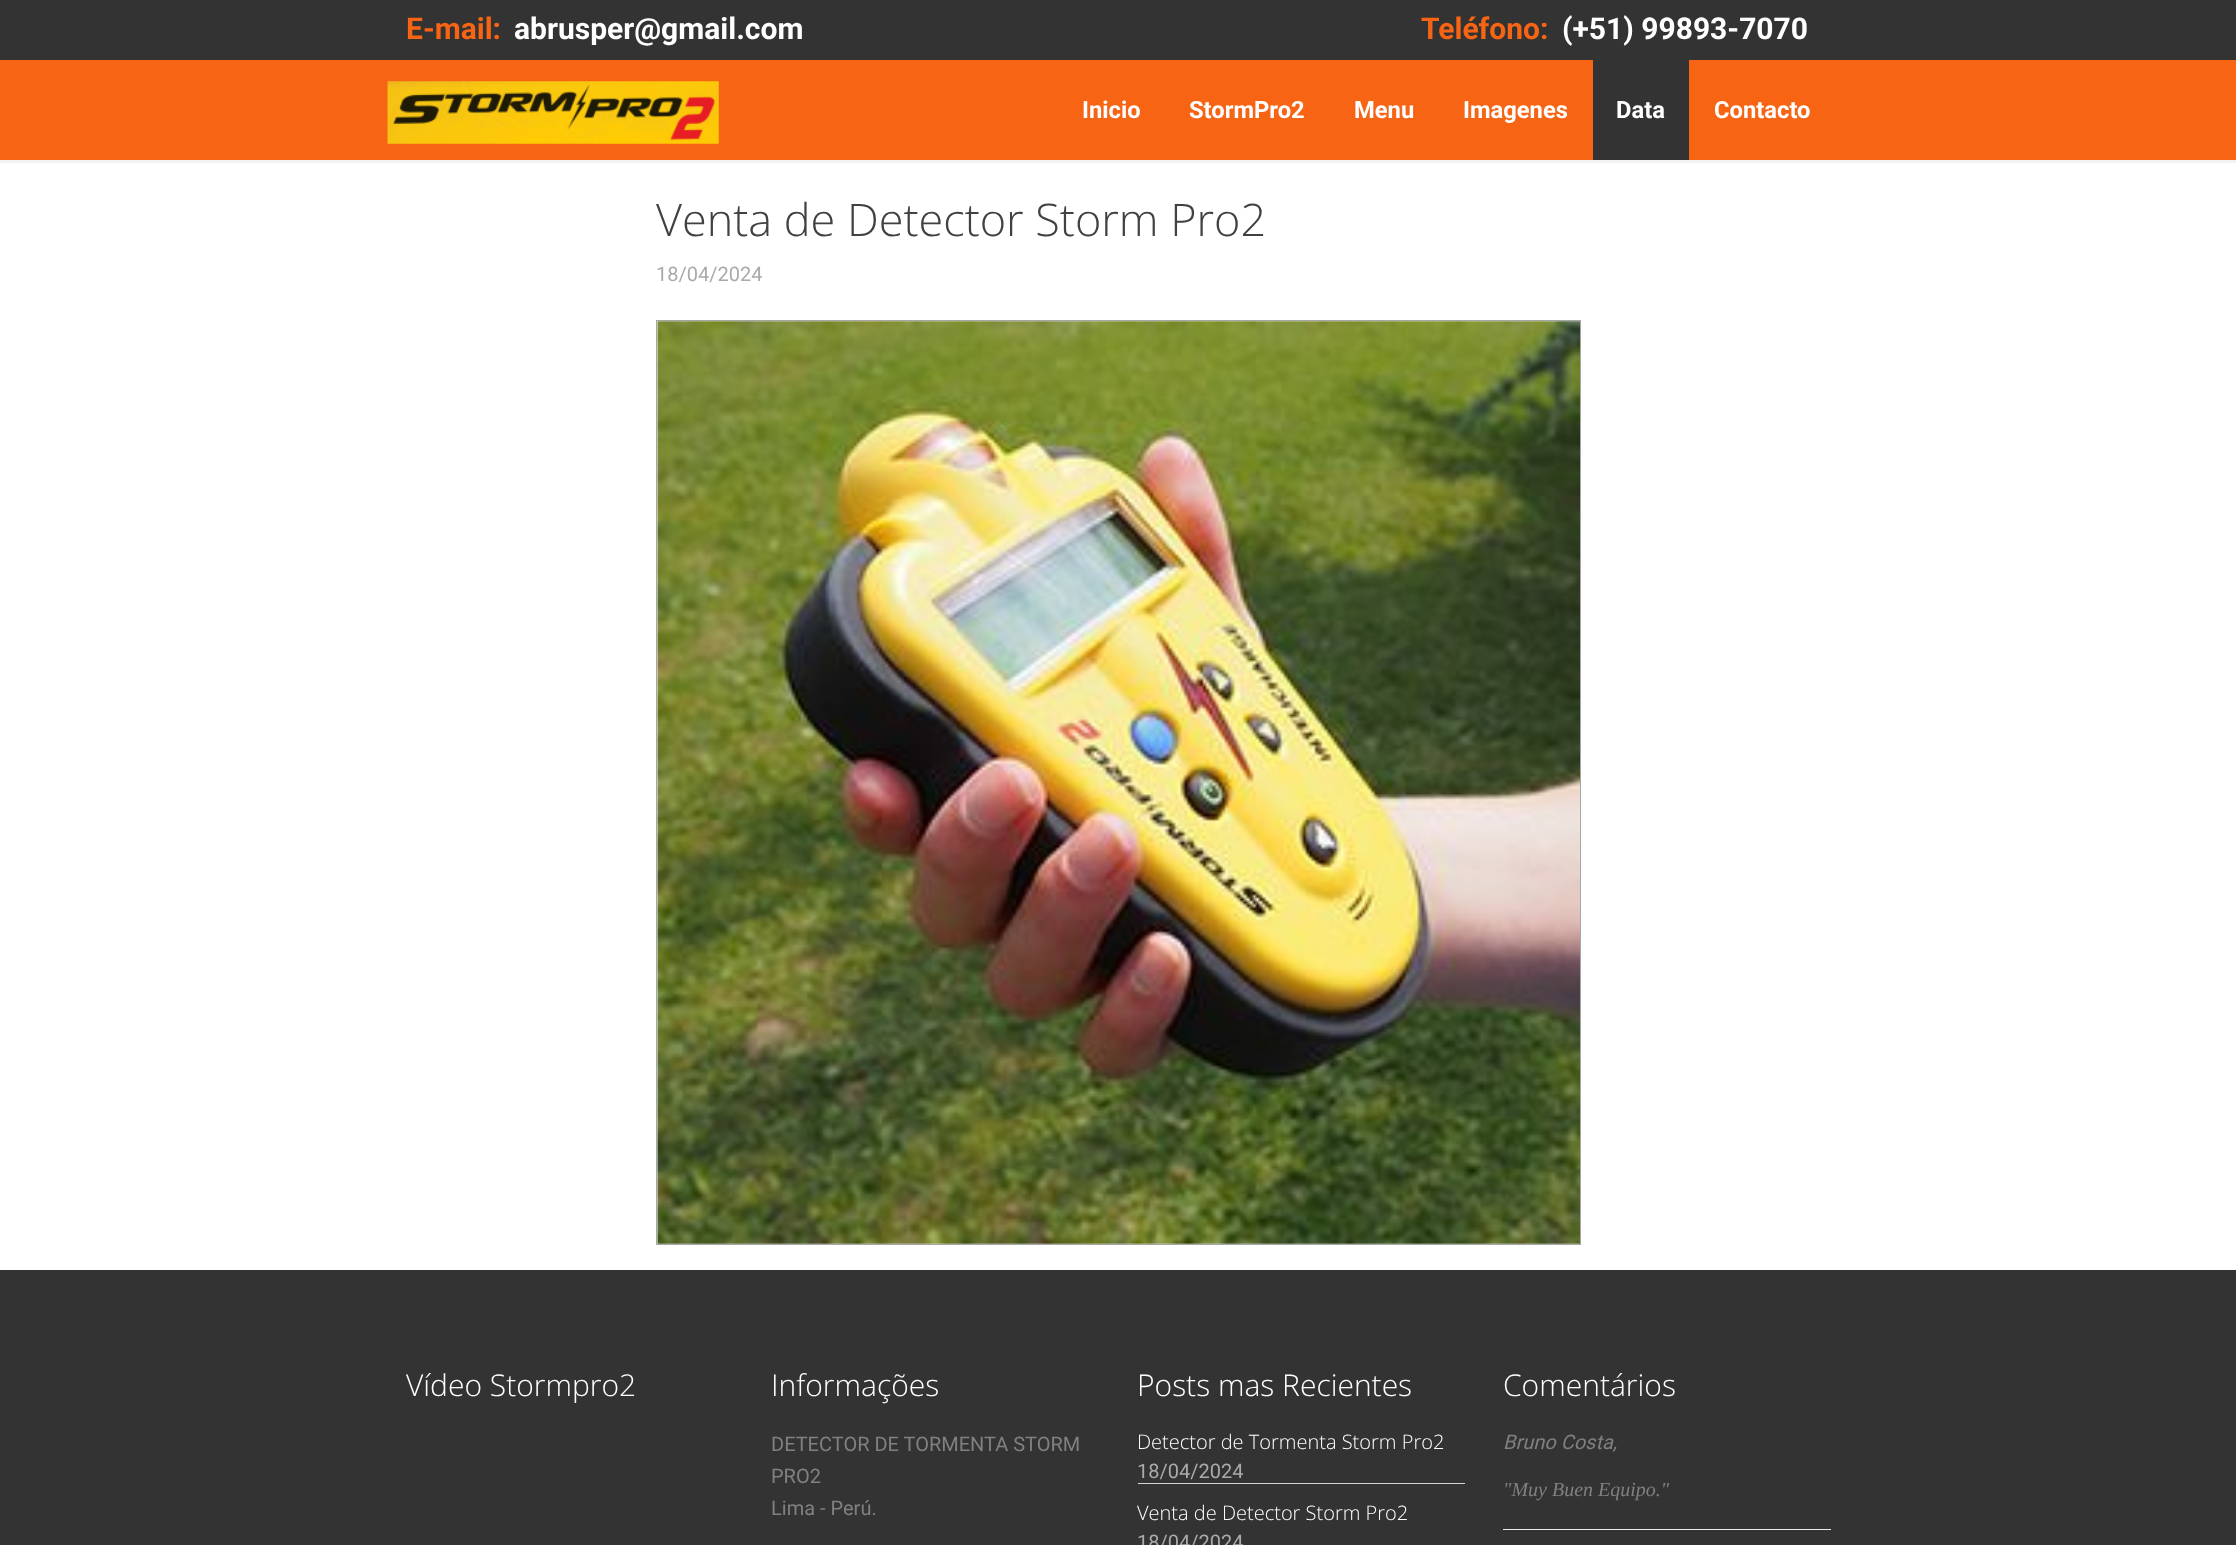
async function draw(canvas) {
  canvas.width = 2236
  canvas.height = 1545
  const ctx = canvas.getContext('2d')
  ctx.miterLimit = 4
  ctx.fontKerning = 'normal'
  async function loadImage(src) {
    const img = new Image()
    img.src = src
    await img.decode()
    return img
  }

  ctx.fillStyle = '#fff'
  ctx.fillRect(0, 0, 2236, 1545)
  ctx.fillStyle = '#333'
  ctx.fillRect(0, 0, 2236, 60)
  ctx.font = 'bold 30px Roboto'
  ctx.fillStyle = '#f66414'
  ctx.fillText('E-mail:', 406, 39)
  ctx.fillStyle = '#fff'
  ctx.fillText('abrusper@gmail.com', 514, 39)
  ctx.fillStyle = '#f66414'
  ctx.fillText('Teléfono:', 1421, 39)
  ctx.fillStyle = '#fff'
  ctx.fillText('(+51) 99893-7070', 1562, 39)
  ctx.fillStyle = '#0000000d'
  ctx.filter = 'blur(0.5px)'
  ctx.beginPath()
  ctx.rect(-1, 60, 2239, 103)
  ctx.fill()
  ctx.filter = 'none'
  ctx.fillStyle = '#f66414'
  ctx.fillRect(0, 60, 2236, 100)
  ctx.drawImage(await loadImage('image0.png'), 387, 81, 332, 63)
  ctx.font = 'bold 23.75px Roboto'
  ctx.fillStyle = '#fff'
  ctx.fillText('Inicio', 1082, 118)
  ctx.fillText('StormPro2', 1189, 118)
  ctx.fillText('Menu', 1354, 118)
  ctx.fillText('Imagenes', 1463, 118)
  ctx.fillStyle = '#333'
  ctx.fillRect(1593, 60, 96, 100)
  ctx.fillStyle = '#fff'
  ctx.fillText('Data', 1616, 118)
  ctx.fillText('Contacto', 1714, 118)
  ctx.font = '300 45px Open Sans'
  ctx.fillStyle = '#414141'
  ctx.fillText('Venta de Detector Storm Pro2', 656, 236)
  ctx.font = '20px Roboto'
  ctx.fillStyle = '#aaa'
  ctx.fillText('18/04/2024', 656, 281)
  ctx.strokeStyle = '#a6a6a6'
  ctx.strokeRect(656.5, 320.5, 924, 924)
  ctx.drawImage(await loadImage('image1.png'), 657, 321, 923, 923)
  ctx.fillStyle = '#333'
  ctx.fillRect(0, 1270, 2236, 275)
  ctx.font = '300 30px Open Sans'
  ctx.fillStyle = '#fff'
  ctx.fillText('Vídeo Stormpro2', 406, 1396)
  ctx.fillText('Informações', 771, 1396)
  ctx.font = '20px Roboto'
  ctx.fillStyle = '#808080'
  ctx.fillText('DETECTOR DE TORMENTA STORM', 771, 1451)
  ctx.fillText('PRO2', 771, 1483)
  ctx.fillText('Lima - Perú.', 771, 1515)
  ctx.font = '300 30px Open Sans'
  ctx.fillStyle = '#fff'
  ctx.fillText('Posts mas Recientes', 1137, 1396)
  ctx.fillStyle = '#d5d5d5'
  ctx.fillRect(1138, 1483, 327, 1)
  ctx.font = '300 20px Open Sans'
  ctx.fillStyle = '#fff'
  ctx.fillText('Detector de Tormenta Storm Pro2', 1137, 1449)
  ctx.font = '20px Roboto'
  ctx.fillStyle = '#aaa'
  ctx.fillText('18/04/2024', 1137, 1478)
  ctx.font = '300 20px Open Sans'
  ctx.fillStyle = '#fff'
  ctx.fillText('Venta de Detector Storm Pro2', 1137, 1520)
  ctx.font = '20px Roboto'
  ctx.fillStyle = '#aaa'
  ctx.fillText('18/04/2024', 1137, 1549)
  ctx.font = '300 30px Open Sans'
  ctx.fillStyle = '#fff'
  ctx.fillText('Comentários', 1503, 1396)
  ctx.font = 'italic 20px Roboto'
  ctx.fillStyle = '#808080'
  ctx.fillText('Bruno Costa,', 1503, 1449)
  ctx.font = 'italic 20px Liberation Serif'
  ctx.fillText('"Muy Buen Equipo."', 1503, 1496)
  ctx.fillStyle = '#eee'
  ctx.fillRect(1503, 1529, 328, 1)
}

draw(document.querySelector('canvas'))
